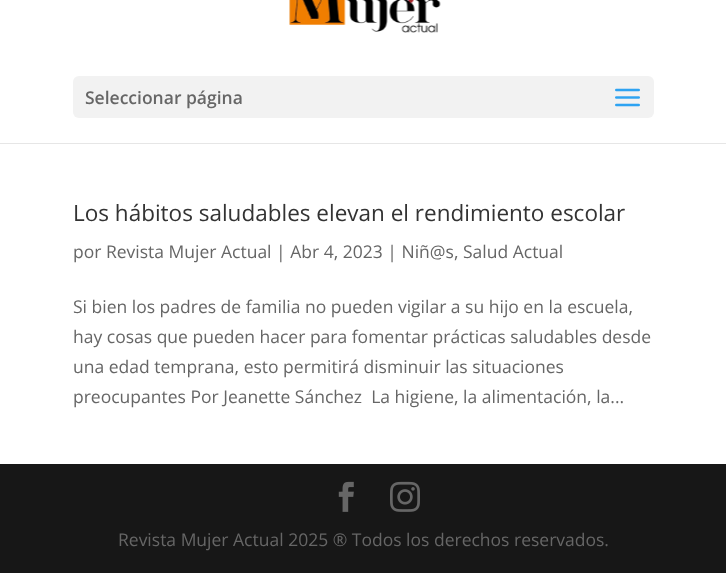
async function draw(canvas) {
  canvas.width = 726
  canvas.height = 573
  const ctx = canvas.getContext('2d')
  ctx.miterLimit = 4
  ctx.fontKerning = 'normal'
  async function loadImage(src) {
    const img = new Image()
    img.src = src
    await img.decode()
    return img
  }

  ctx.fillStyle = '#fff'
  ctx.fillRect(0, 0, 726, 573)
  ctx.fillStyle = '#e6e6e6'
  ctx.fillRect(0, 143, 726, 1)
  ctx.drawImage(await loadImage('image0.png'), 289, 0, 152, 33)
  ctx.fillStyle = '#f2f2f2'
  ctx.beginPath()
  ctx.roundRect(73, 76, 581, 42, 6)
  ctx.fill()
  ctx.font = '600 17.5px Open Sans'
  ctx.fillStyle = '#666'
  ctx.fillText('Seleccionar página', 85, 104)
  ctx.drawImage(await loadImage('image1.png'), 615, 88, 25, 19)
  ctx.font = '22.5px Open Sans'
  ctx.fillStyle = '#333'
  ctx.fillText('Los hábitos saludables elevan el rendimiento escolar', 73, 221)
  ctx.font = '17.5px Open Sans'
  ctx.fillStyle = '#666'
  ctx.fillText('por Revista Mujer Actual | Abr 4, 2023 | Niñ@s, Salud Actual', 73, 258)
  ctx.fillText('Si bien los padres de familia no pueden vigilar a su hijo en la escuela,', 73, 313)
  ctx.fillText('hay cosas que pueden hacer para fomentar prácticas saludables desde', 73, 343)
  ctx.fillText('una edad temprana, esto permitirá disminuir las situaciones', 73, 373)
  ctx.fillText('preocupantes Por Jeanette Sánchez  La higiene, la alimentación, la...', 73, 403)
  ctx.fillStyle = '#171717'
  ctx.fillRect(0, 464, 726, 109)
  ctx.drawImage(await loadImage('image2.png'), 338, 481, 16, 31)
  ctx.drawImage(await loadImage('image3.png'), 390, 481, 30, 31)
  ctx.fillStyle = '#666'
  ctx.fillText('Revista Mujer Actual 2025 ® Todos los derechos reservados.', 118, 546)
}

draw(document.querySelector('canvas'))
